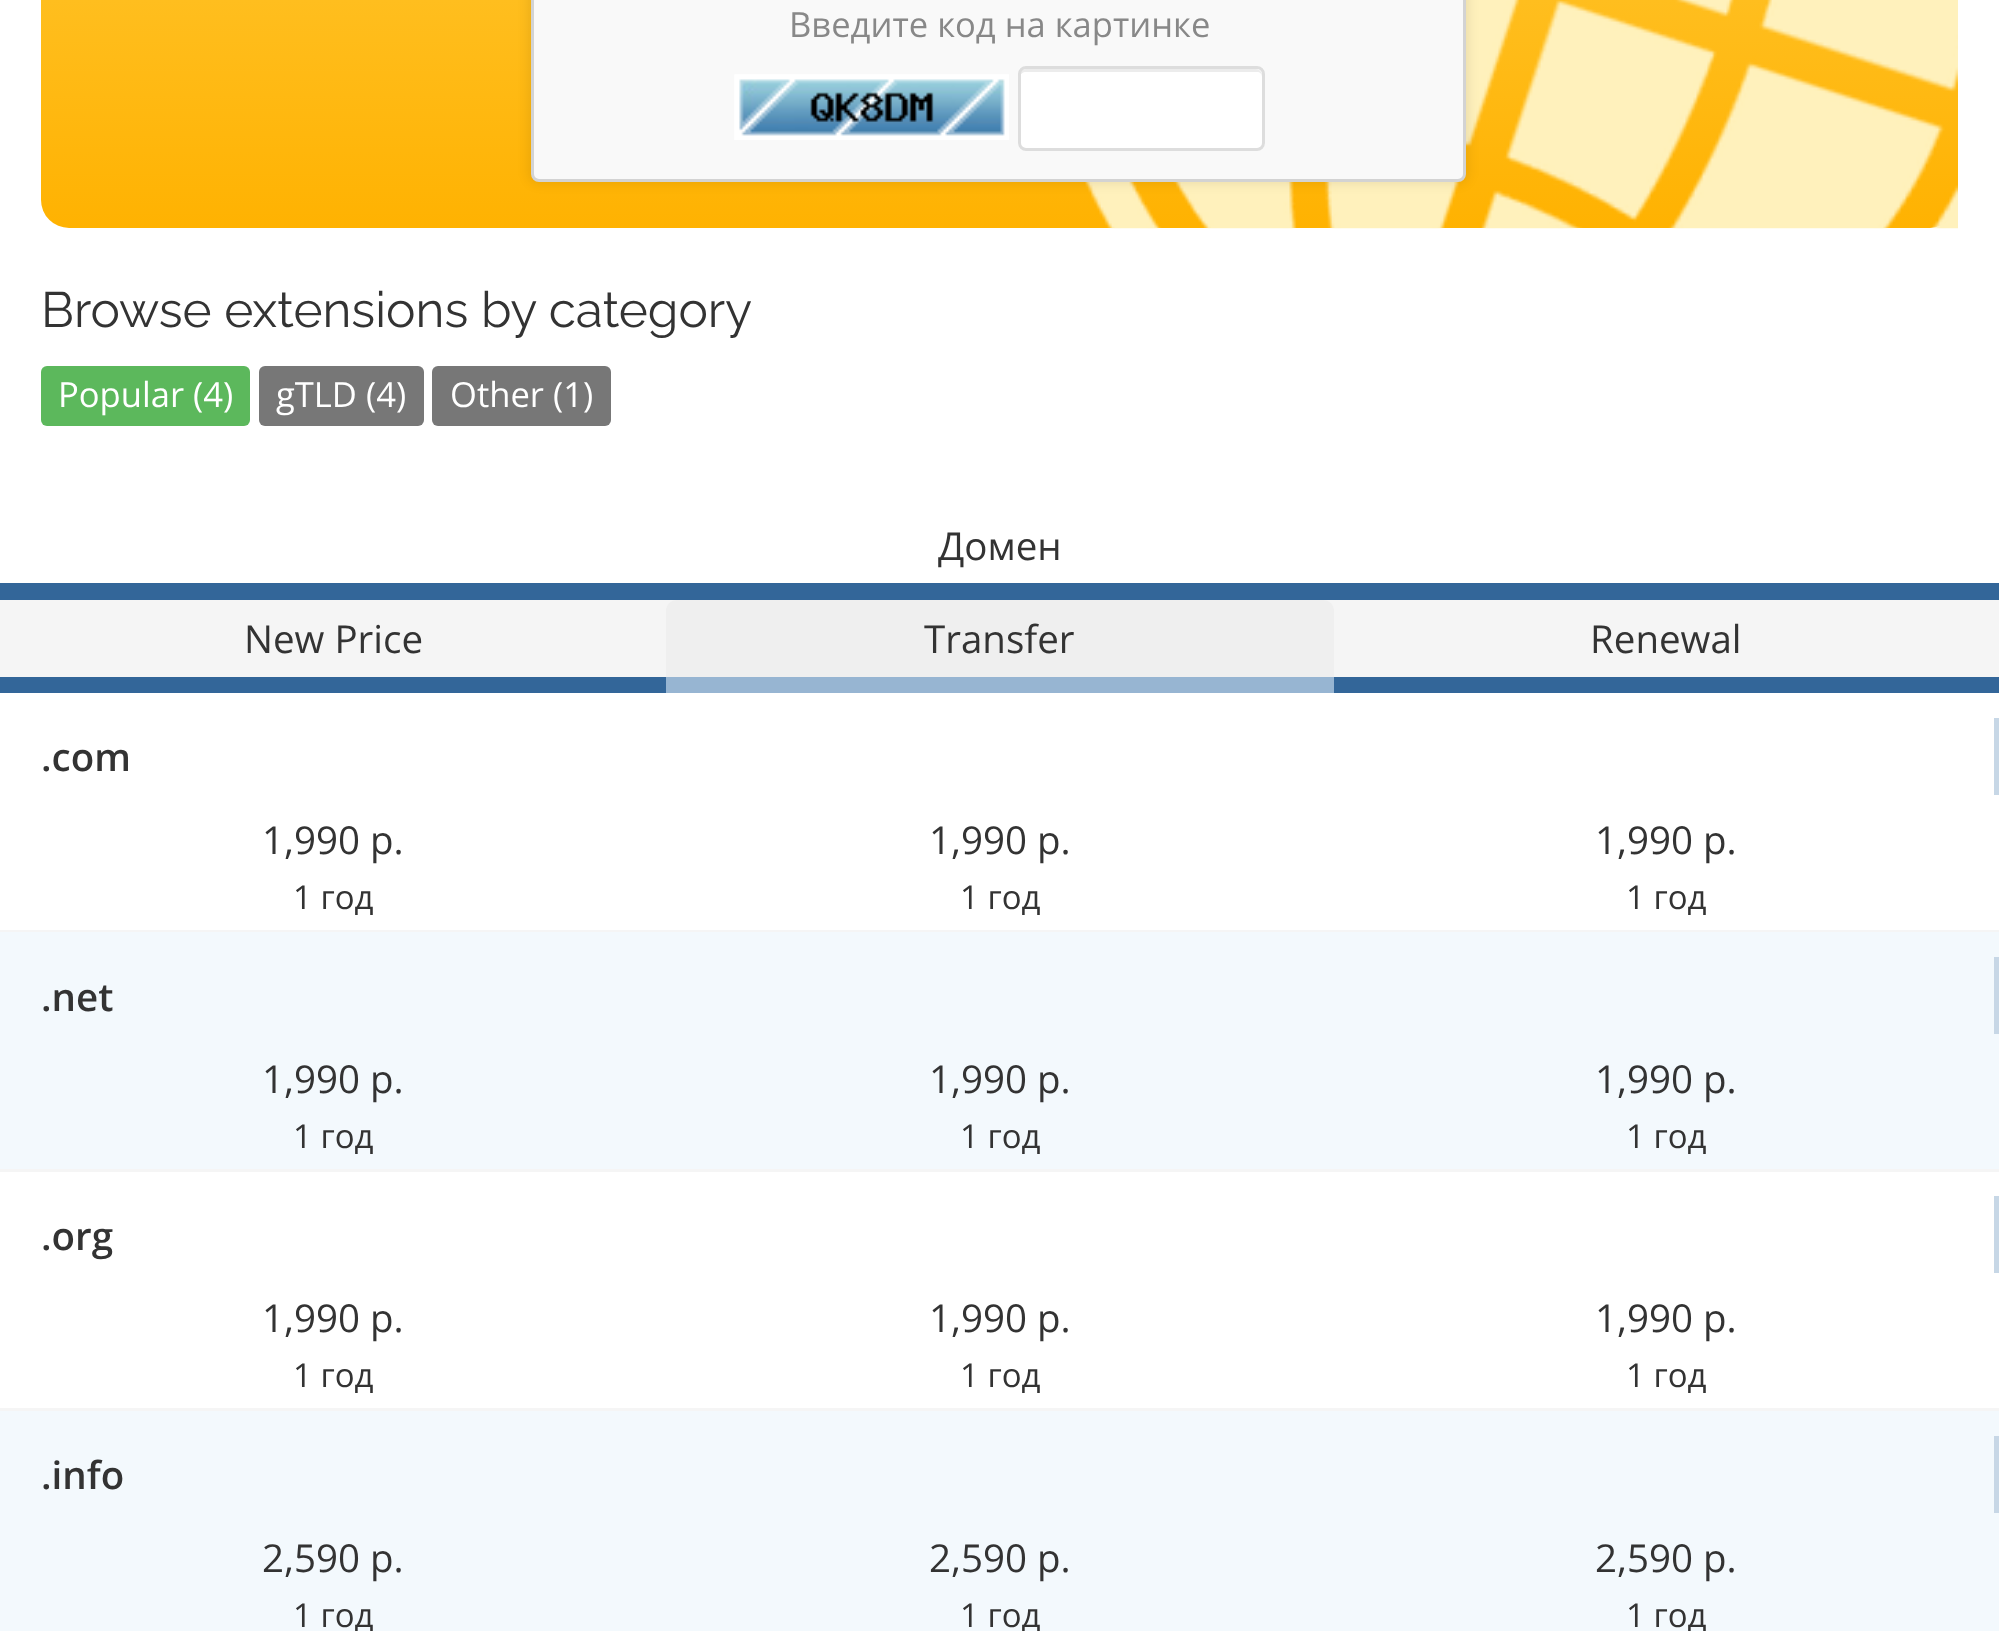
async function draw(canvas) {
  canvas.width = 1999
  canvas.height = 1631
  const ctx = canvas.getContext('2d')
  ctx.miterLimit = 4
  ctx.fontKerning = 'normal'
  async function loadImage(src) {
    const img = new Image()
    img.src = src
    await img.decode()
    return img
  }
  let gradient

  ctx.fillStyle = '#fff'
  ctx.fillRect(0, 0, 1999, 1631)
  gradient = ctx.createLinearGradient(1000, -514, 1000, 228)
  gradient.addColorStop(0, '#ffd960')
  gradient.addColorStop(1, '#ffb201')
  ctx.fillStyle = gradient
  ctx.beginPath()
  ctx.roundRect(41, -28, 1917, 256, 28)
  ctx.fill()
  ctx.drawImage(await loadImage('image0.png'), 1085, 0, 873, 229)
  ctx.fillStyle = '#00000014'
  ctx.filter = 'blur(5.5px)'
  ctx.beginPath()
  ctx.roundRect(528, -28, 941, 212, 11)
  ctx.fill()
  ctx.filter = 'none'
  ctx.fillStyle = '#f9f9f9'
  ctx.beginPath()
  ctx.roundRect(532.5, -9.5, 932, 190, 6.5)
  ctx.fill()
  ctx.strokeStyle = '#d3d3d3'
  ctx.lineWidth = 3
  ctx.stroke()
  ctx.font = '34.6px Open Sans'
  ctx.fillStyle = '#888'
  ctx.fillText('Введите код на картинке', 789, 37)
  ctx.drawImage(await loadImage('image1.png'), 734, 74, 275, 66)
  ctx.fillStyle = '#fff'
  ctx.beginPath()
  ctx.roundRect(1018, 66, 247, 85, 8)
  ctx.fill()
  ctx.fillStyle = '#ececec'
  ctx.beginPath()
  ctx.moveTo(1026, 72)
  ctx.lineTo(1257, 72)
  ctx.bezierCurveTo(1260, 72, 1262, 74, 1262, 77)
  ctx.lineTo(1262, 75)
  ctx.bezierCurveTo(1262, 72, 1259, 69, 1256, 69)
  ctx.lineTo(1026, 69)
  ctx.bezierCurveTo(1023, 69, 1020, 72, 1020, 75)
  ctx.lineTo(1020, 77)
  ctx.bezierCurveTo(1020, 74, 1023, 72, 1026, 72)
  ctx.closePath()
  ctx.fill()
  ctx.beginPath()
  ctx.roundRect(1019.5, 67.5, 244, 82, 6.5)
  ctx.strokeStyle = '#ddd'
  ctx.stroke()
  ctx.font = '49.5px Raleway'
  ctx.fillStyle = '#333'
  ctx.fillText('Browse extensions by category', 41, 327)
  ctx.fillStyle = '#5cb85c'
  ctx.beginPath()
  ctx.roundRect(41, 366, 209, 60, 6)
  ctx.fill()
  ctx.font = '34.6px Open Sans'
  ctx.fillStyle = '#fff'
  ctx.fillText('Popular (4)', 58, 407)
  ctx.fillStyle = '#777'
  ctx.beginPath()
  ctx.roundRect(259, 366, 165, 60, 6)
  ctx.fill()
  ctx.fillStyle = '#fff'
  ctx.fillText('gTLD (4)', 276, 407)
  ctx.fillStyle = '#777'
  ctx.beginPath()
  ctx.roundRect(432, 366, 179, 60, 6)
  ctx.fill()
  ctx.fillStyle = '#fff'
  ctx.fillText('Other (1)', 450, 407)
  ctx.fillStyle = '#369'
  ctx.fillRect(0, 583, 1999, 17)
  ctx.font = '38.5px Open Sans'
  ctx.fillStyle = '#333'
  ctx.fillText('Домен', 938, 560)
  ctx.fillStyle = '#f5f5f5'
  ctx.fillRect(0, 600, 1999, 77)
  ctx.fillStyle = '#369'
  ctx.fillRect(0, 677, 666, 16)
  ctx.fillStyle = '#333'
  ctx.fillText('New Price', 244, 653)
  ctx.fillStyle = '#efefef'
  ctx.beginPath()
  ctx.roundRect(666, 600, 668, 93, [11, 11, 0, 0])
  ctx.fill()
  ctx.fillStyle = '#97b5d2'
  ctx.fillRect(666, 677, 668, 16)
  ctx.fillStyle = '#333'
  ctx.fillText('Transfer', 924, 653)
  ctx.fillStyle = '#369'
  ctx.fillRect(1334, 677, 665, 16)
  ctx.fillStyle = '#333'
  ctx.fillText('Renewal', 1590, 653)
  ctx.fillStyle = '#f5f5f5'
  ctx.fillRect(0, 930, 1999, 2)
  ctx.fillStyle = '#c7d7e6'
  ctx.fillRect(1994, 718, 5, 77)
  ctx.font = '600 38.5px Open Sans'
  ctx.fillStyle = '#333'
  ctx.fillText('.com', 41, 771)
  ctx.font = '38.5px Open Sans'
  ctx.fillText('1,990 p.', 262, 854)
  ctx.font = '33px Open Sans'
  ctx.fillText('1 год', 293, 909)
  ctx.font = '38.5px Open Sans'
  ctx.fillText('1,990 p.', 929, 854)
  ctx.font = '33px Open Sans'
  ctx.fillText('1 год', 960, 909)
  ctx.font = '38.5px Open Sans'
  ctx.fillText('1,990 p.', 1595, 854)
  ctx.font = '33px Open Sans'
  ctx.fillText('1 год', 1626, 909)
  ctx.fillStyle = '#f3f9fd'
  ctx.fillRect(0, 932, 1999, 237)
  ctx.fillStyle = '#f5f5f5'
  ctx.fillRect(0, 1169, 1999, 3)
  ctx.fillStyle = '#c7d7e6'
  ctx.fillRect(1994, 957, 5, 77)
  ctx.font = '600 38.5px Open Sans'
  ctx.fillStyle = '#333'
  ctx.fillText('.net', 41, 1011)
  ctx.font = '38.5px Open Sans'
  ctx.fillText('1,990 p.', 262, 1093)
  ctx.font = '33px Open Sans'
  ctx.fillText('1 год', 293, 1148)
  ctx.font = '38.5px Open Sans'
  ctx.fillText('1,990 p.', 929, 1093)
  ctx.font = '33px Open Sans'
  ctx.fillText('1 год', 960, 1148)
  ctx.font = '38.5px Open Sans'
  ctx.fillText('1,990 p.', 1595, 1093)
  ctx.font = '33px Open Sans'
  ctx.fillText('1 год', 1626, 1148)
  ctx.fillStyle = '#f5f5f5'
  ctx.fillRect(0, 1408, 1999, 3)
  ctx.fillStyle = '#c7d7e6'
  ctx.fillRect(1994, 1196, 5, 77)
  ctx.font = '600 38.5px Open Sans'
  ctx.fillStyle = '#333'
  ctx.fillText('.org', 41, 1250)
  ctx.font = '38.5px Open Sans'
  ctx.fillText('1,990 p.', 262, 1332)
  ctx.font = '33px Open Sans'
  ctx.fillText('1 год', 293, 1387)
  ctx.font = '38.5px Open Sans'
  ctx.fillText('1,990 p.', 929, 1332)
  ctx.font = '33px Open Sans'
  ctx.fillText('1 год', 960, 1387)
  ctx.font = '38.5px Open Sans'
  ctx.fillText('1,990 p.', 1595, 1332)
  ctx.font = '33px Open Sans'
  ctx.fillText('1 год', 1626, 1387)
  ctx.fillStyle = '#f3f9fd'
  ctx.fillRect(0, 1411, 1999, 220)
  ctx.fillStyle = '#c7d7e6'
  ctx.fillRect(1994, 1436, 5, 77)
  ctx.font = '600 38.5px Open Sans'
  ctx.fillStyle = '#333'
  ctx.fillText('.info', 41, 1489)
  ctx.font = '38.5px Open Sans'
  ctx.fillText('2,590 p.', 262, 1572)
  ctx.font = '33px Open Sans'
  ctx.fillText('1 год', 293, 1627)
  ctx.font = '38.5px Open Sans'
  ctx.fillText('2,590 p.', 929, 1572)
  ctx.font = '33px Open Sans'
  ctx.fillText('1 год', 960, 1627)
  ctx.font = '38.5px Open Sans'
  ctx.fillText('2,590 p.', 1595, 1572)
  ctx.font = '33px Open Sans'
  ctx.fillText('1 год', 1626, 1627)
}

draw(document.querySelector('canvas'))
